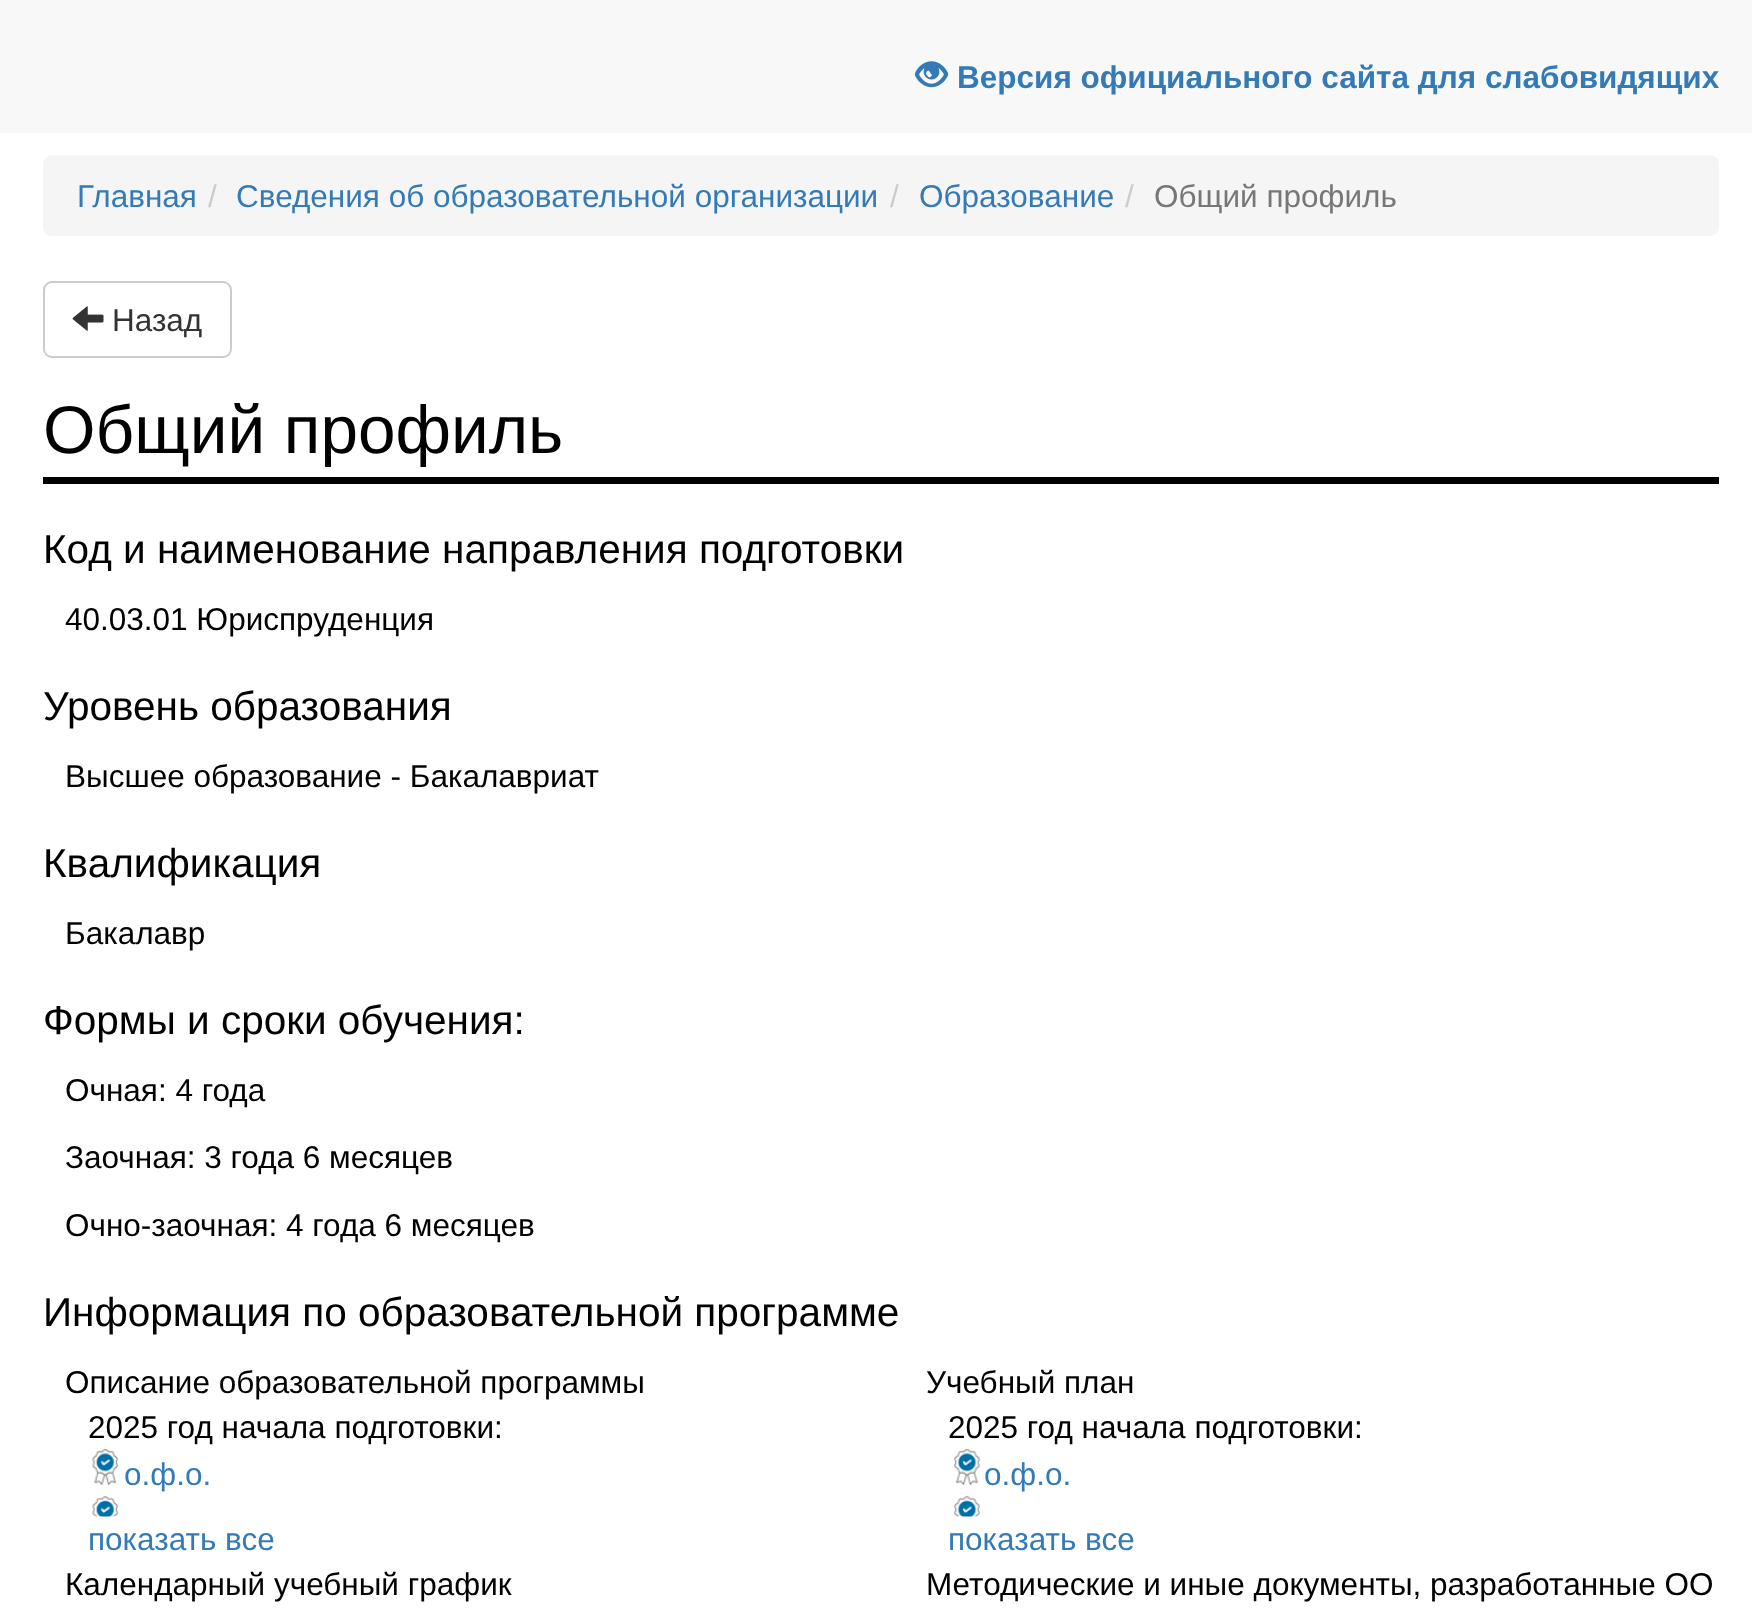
async function draw(canvas) {
  canvas.width = 1752
  canvas.height = 1618
  const ctx = canvas.getContext('2d')
  ctx.miterLimit = 4
  ctx.fontKerning = 'normal'
  async function loadImage(src) {
    const img = new Image()
    img.src = src
    await img.decode()
    return img
  }

  ctx.fillStyle = '#fff'
  ctx.fillRect(0, 0, 1752, 1618)
  ctx.fillStyle = '#f8f8f8'
  ctx.fillRect(0, 0, 1752, 133)
  ctx.drawImage(await loadImage('image0.png'), 914, 61, 35, 27)
  ctx.font = 'bold 31.5px Liberation Sans'
  ctx.fillStyle = '#337ab7'
  ctx.fillText('Версия официального сайта для слабовидящих', 957, 88)
  ctx.fillStyle = '#f5f5f5'
  ctx.beginPath()
  ctx.roundRect(43, 155, 1676, 81, 9)
  ctx.fill()
  ctx.font = '31.5px Liberation Sans'
  ctx.fillStyle = '#337ab7'
  ctx.fillText('Главная', 77, 207)
  ctx.fillStyle = '#ccc'
  ctx.fillText('/', 208, 207)
  ctx.fillStyle = '#337ab7'
  ctx.fillText('Сведения об образовательной организации', 236, 207)
  ctx.fillStyle = '#ccc'
  ctx.fillText('/', 890, 207)
  ctx.fillStyle = '#337ab7'
  ctx.fillText('Образование', 919, 207)
  ctx.fillStyle = '#ccc'
  ctx.fillText('/', 1125, 207)
  ctx.fillStyle = '#777'
  ctx.fillText('Общий профиль', 1154, 207)
  ctx.beginPath()
  ctx.roundRect(44, 282, 187, 75, 8)
  ctx.strokeStyle = '#ccc'
  ctx.lineWidth = 2
  ctx.stroke()
  ctx.drawImage(await loadImage('image1.png'), 72, 306, 32, 25)
  ctx.fillStyle = '#333'
  ctx.fillText('Назад', 112, 331)
  ctx.fillStyle = '#000'
  ctx.fillRect(43, 477, 1676, 7)
  ctx.font = '67.5px Liberation Sans'
  ctx.fillText('Общий профиль', 43, 453)
  ctx.font = '40.5px Liberation Sans'
  ctx.fillText('Код и наименование направления подготовки', 43, 563)
  ctx.font = '31.5px Liberation Sans'
  ctx.fillText('40.03.01 Юриспруденция', 65, 630)
  ctx.font = '40.5px Liberation Sans'
  ctx.fillText('Уровень образования', 43, 720)
  ctx.font = '31.5px Liberation Sans'
  ctx.fillText('Высшее образование - Бакалавриат', 65, 787)
  ctx.font = '40.5px Liberation Sans'
  ctx.fillText('Квалификация', 43, 877)
  ctx.font = '31.5px Liberation Sans'
  ctx.fillText('Бакалавр', 65, 944)
  ctx.font = '40.5px Liberation Sans'
  ctx.fillText('Формы и сроки обучения:', 43, 1034)
  ctx.font = '31.5px Liberation Sans'
  ctx.fillText('Очная: 4 года', 65, 1101)
  ctx.fillText('Заочная: 3 года 6 месяцев', 65, 1168)
  ctx.fillText('Очно-заочная: 4 года 6 месяцев', 65, 1236)
  ctx.font = '40.5px Liberation Sans'
  ctx.fillText('Информация по образовательной программе', 43, 1326)
  ctx.font = '31.5px Liberation Sans'
  ctx.fillText('Описание образовательной программы', 65, 1393)
  ctx.fillText('2025 год начала подготовки:', 88, 1438)
  ctx.drawImage(await loadImage('image2.png'), 92, 1449, 27, 36)
  ctx.fillStyle = '#337ab7'
  ctx.fillText('о.ф.о.', 124, 1485)
  ctx.drawImage(await loadImage('image3.png'), 92, 1496, 27, 21)
  ctx.fillText('показать все', 88, 1550)
  ctx.fillStyle = '#000'
  ctx.fillText('Учебный план', 926, 1393)
  ctx.fillText('2025 год начала подготовки:', 948, 1438)
  ctx.drawImage(await loadImage('image4.png'), 954, 1449, 26, 36)
  ctx.fillStyle = '#337ab7'
  ctx.fillText('о.ф.о.', 984, 1485)
  ctx.drawImage(await loadImage('image5.png'), 954, 1496, 26, 21)
  ctx.fillText('показать все', 948, 1550)
  ctx.fillStyle = '#000'
  ctx.fillText('Календарный учебный график', 65, 1595)
  ctx.fillText('Методические и иные документы, разработанные ОО', 926, 1595)
}

draw(document.querySelector('canvas'))
